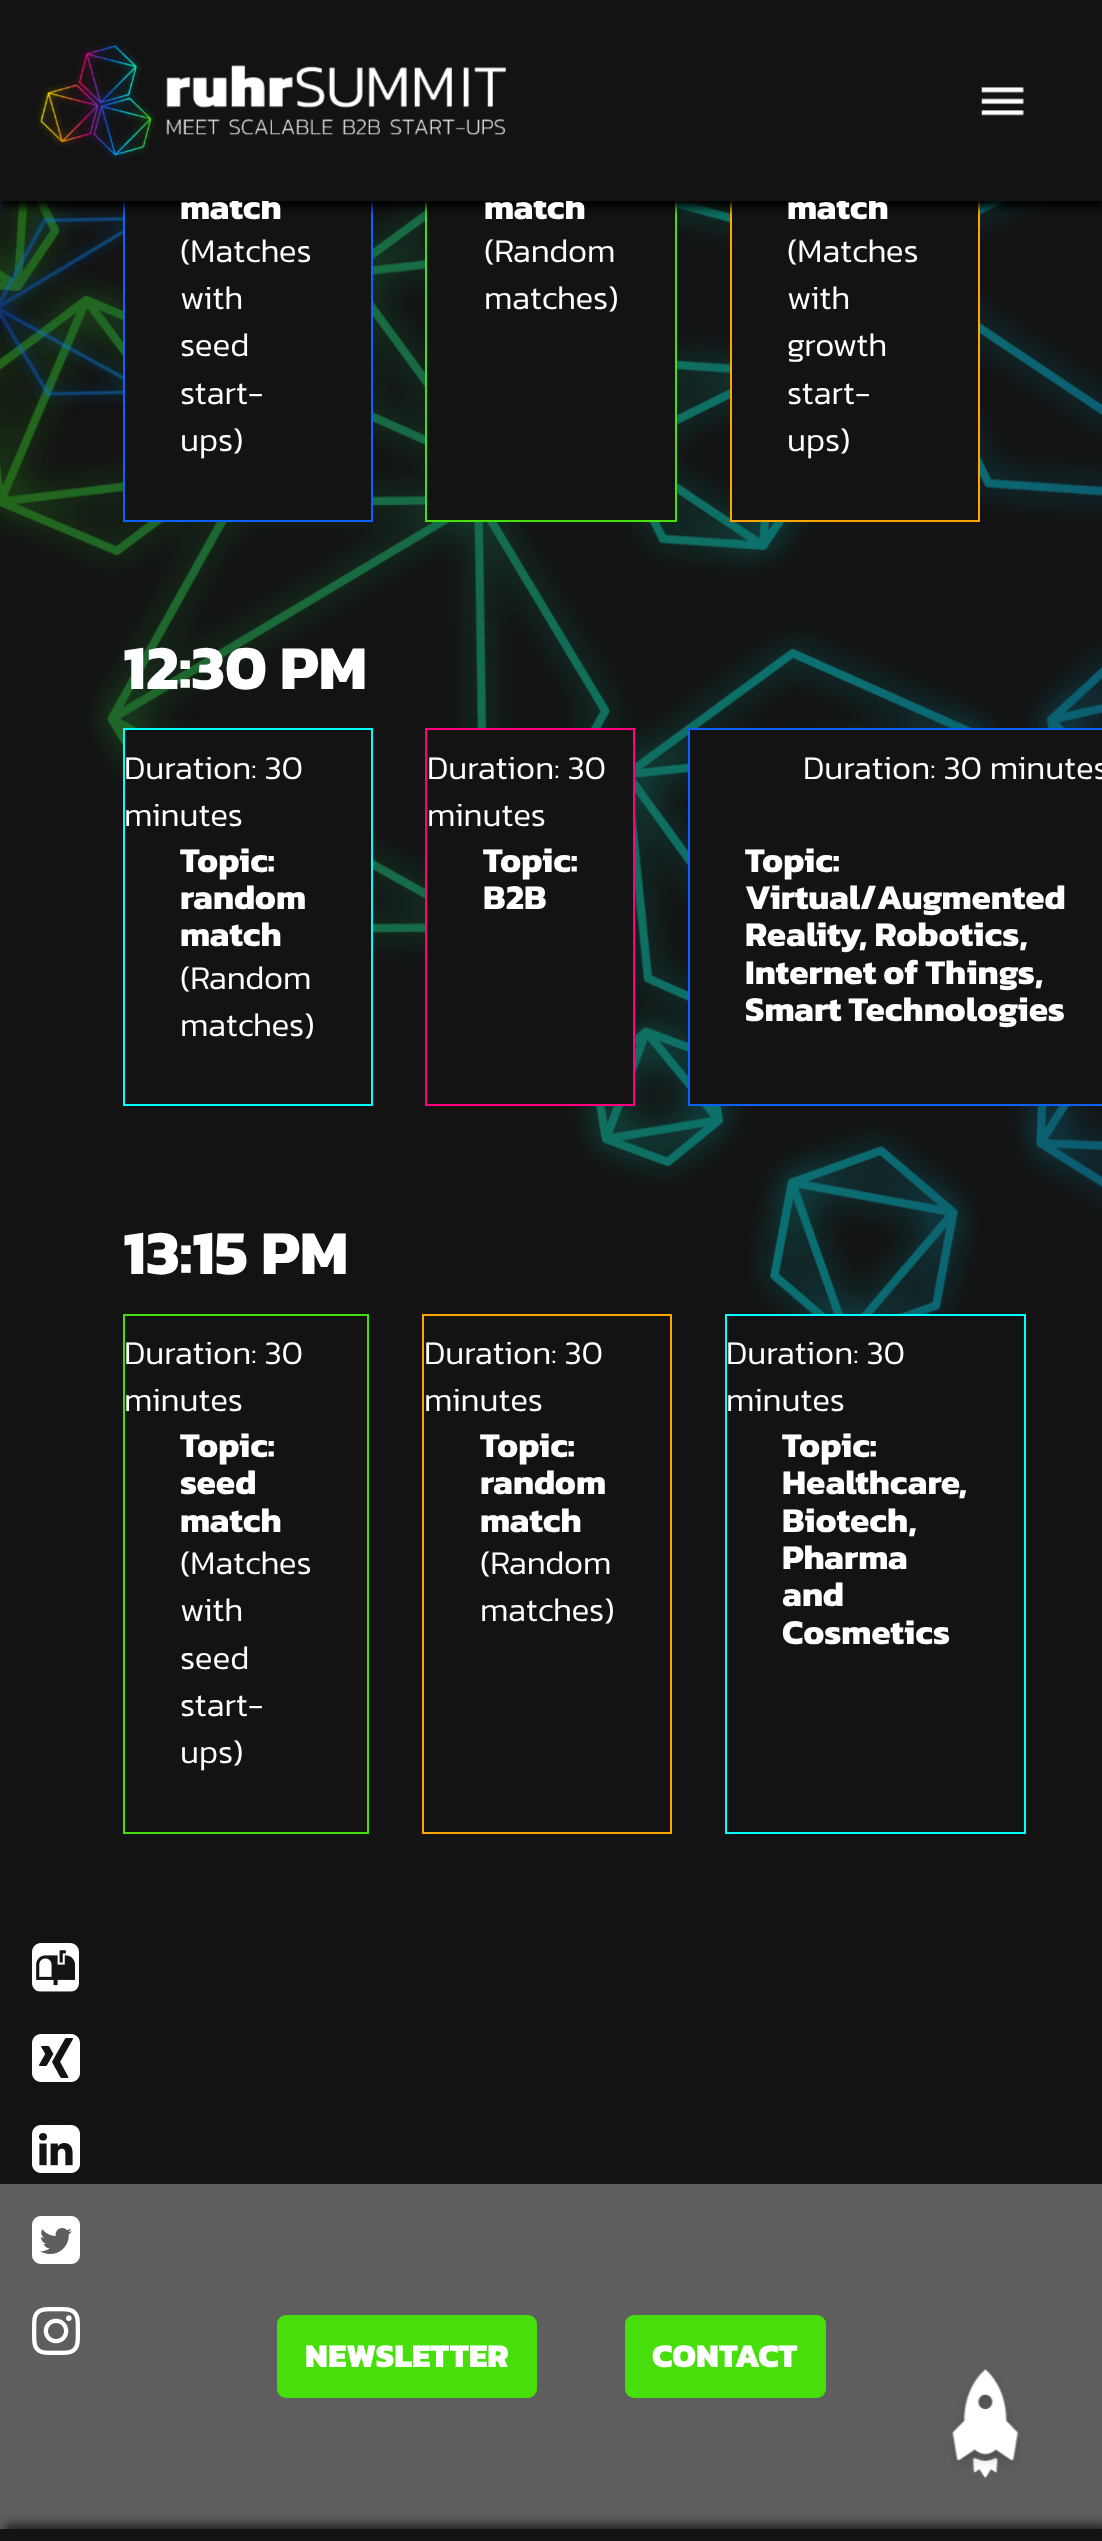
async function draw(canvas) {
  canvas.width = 1102
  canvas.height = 2541
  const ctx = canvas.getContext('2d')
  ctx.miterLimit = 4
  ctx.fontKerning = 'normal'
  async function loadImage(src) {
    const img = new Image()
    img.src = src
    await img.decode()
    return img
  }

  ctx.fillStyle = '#131313'
  ctx.fillRect(0, 0, 1102, 2541)
  ctx.drawImage(await loadImage('image0.png'), 0, 201, 1102, 1113)
  ctx.fillRect(125, 201, 246, 319)
  ctx.strokeStyle = '#0d62ff'
  ctx.lineWidth = 2
  ctx.strokeRect(124, 3, 248, 518)
  ctx.fillRect(427, 201, 248, 319)
  ctx.strokeStyle = '#47de0b'
  ctx.strokeRect(426, 3, 250, 518)
  ctx.fillRect(732, 201, 246, 319)
  ctx.strokeStyle = '#ffa600'
  ctx.strokeRect(731, 3, 248, 518)
  ctx.fillStyle = '#000'
  ctx.filter = 'blur(5px)'
  ctx.beginPath()
  ctx.rect(0, 5, 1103, 202)
  ctx.fill()
  ctx.filter = 'none'
  ctx.font = 'bold 35px Kanit'
  ctx.fillStyle = '#fff'
  ctx.fillText('match', 180, 219)
  ctx.fillText('match', 484, 219)
  ctx.fillText('match', 787, 219)
  ctx.fillStyle = '#131313'
  ctx.fillRect(0, 0, 1102, 201)
  ctx.drawImage(await loadImage('image1.png'), 37, 42, 469, 118)
  ctx.drawImage(await loadImage('image2.png'), 981, 87, 43, 29)
  ctx.font = '300 33.25px Kanit'
  ctx.fillStyle = '#fff'
  ctx.fillText('(Matches', 180, 262)
  ctx.fillText('with', 180, 309)
  ctx.fillText('seed', 180, 356)
  ctx.fillText('start-', 180, 404)
  ctx.fillText('ups)', 180, 451)
  ctx.fillText('(Random', 484, 262)
  ctx.fillText('matches)', 484, 309)
  ctx.fillText('(Matches', 787, 262)
  ctx.fillText('with', 787, 309)
  ctx.fillText('growth', 787, 356)
  ctx.fillText('start-', 787, 404)
  ctx.fillText('ups)', 787, 451)
  ctx.font = 'bold 63px Kanit'
  ctx.fillText('12:30 PM', 123, 689)
  ctx.fillStyle = '#131313'
  ctx.fillRect(125, 730, 246, 231)
  ctx.strokeStyle = '#0ff'
  ctx.strokeRect(124, 729, 248, 376)
  ctx.font = '300 33.25px Kanit'
  ctx.fillStyle = '#fff'
  ctx.fillText('Duration: 30', 124, 779)
  ctx.fillText('minutes', 124, 826)
  ctx.font = 'bold 35px Kanit'
  ctx.fillText('Topic:', 180, 872)
  ctx.fillText('random', 180, 909)
  ctx.fillText('match', 180, 946)
  ctx.font = '300 33.25px Kanit'
  ctx.fillText('(Random', 180, 989)
  ctx.fillText('matches)', 180, 1036)
  ctx.fillStyle = '#131313'
  ctx.beginPath()
  ctx.rect(426, 729, 208, 376)
  ctx.fill()
  ctx.strokeStyle = '#ff0080'
  ctx.stroke()
  ctx.fillStyle = '#fff'
  ctx.fillText('Duration: 30', 427, 779)
  ctx.fillText('minutes', 427, 826)
  ctx.font = 'bold 35px Kanit'
  ctx.fillText('Topic:', 483, 872)
  ctx.fillText('B2B', 483, 909)
  ctx.fillStyle = '#131313'
  ctx.beginPath()
  ctx.rect(689, 729, 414, 376)
  ctx.fill()
  ctx.strokeStyle = '#0d62ff'
  ctx.stroke()
  ctx.font = '300 33.25px Kanit'
  ctx.fillStyle = '#fff'
  ctx.fillText('Duration: 30 minutes', 803, 779)
  ctx.font = 'bold 35px Kanit'
  ctx.fillText('Topic:', 745, 872)
  ctx.fillText('Virtual/Augmented', 745, 909)
  ctx.fillText('Reality, Robotics,', 745, 946)
  ctx.fillText('Internet of Things,', 745, 984)
  ctx.fillText('Smart Technologies', 745, 1021)
  ctx.font = 'bold 63px Kanit'
  ctx.fillText('13:15 PM', 123, 1274)
  ctx.strokeStyle = '#47de0b'
  ctx.strokeRect(124, 1315, 244, 518)
  ctx.font = '300 33.25px Kanit'
  ctx.fillText('Duration: 30', 124, 1364)
  ctx.fillText('minutes', 124, 1411)
  ctx.font = 'bold 35px Kanit'
  ctx.fillText('Topic:', 180, 1457)
  ctx.fillText('seed', 180, 1494)
  ctx.fillText('match', 180, 1532)
  ctx.font = '300 33.25px Kanit'
  ctx.fillText('(Matches', 180, 1574)
  ctx.fillText('with', 180, 1621)
  ctx.fillText('seed', 180, 1669)
  ctx.fillText('start-', 180, 1716)
  ctx.fillText('ups)', 180, 1763)
  ctx.strokeStyle = '#ffa600'
  ctx.strokeRect(423, 1315, 248, 518)
  ctx.fillText('Duration: 30', 424, 1364)
  ctx.fillText('minutes', 424, 1411)
  ctx.font = 'bold 35px Kanit'
  ctx.fillText('Topic:', 480, 1457)
  ctx.fillText('random', 480, 1494)
  ctx.fillText('match', 480, 1532)
  ctx.font = '300 33.25px Kanit'
  ctx.fillText('(Random', 480, 1574)
  ctx.fillText('matches)', 480, 1621)
  ctx.strokeStyle = '#0ff'
  ctx.strokeRect(726, 1315, 299, 518)
  ctx.fillText('Duration: 30', 726, 1364)
  ctx.fillText('minutes', 726, 1411)
  ctx.font = 'bold 35px Kanit'
  ctx.fillText('Topic:', 782, 1457)
  ctx.fillText('Healthcare,', 782, 1494)
  ctx.fillText('Biotech,', 782, 1532)
  ctx.fillText('Pharma', 782, 1569)
  ctx.fillText('and', 782, 1606)
  ctx.fillText('Cosmetics', 782, 1644)
  ctx.drawImage(await loadImage('image3.png'), 32, 1943, 47, 49)
  ctx.drawImage(await loadImage('image4.png'), 32, 2034, 48, 48)
  ctx.drawImage(await loadImage('image5.png'), 32, 2125, 48, 48)
  ctx.fillStyle = '#5e5e5e'
  ctx.fillRect(0, 2184, 1102, 345)
  ctx.drawImage(await loadImage('image6.png'), 32, 2216, 48, 48)
  ctx.drawImage(await loadImage('image7.png'), 32, 2307, 48, 48)
  ctx.fillStyle = '#47de0b'
  ctx.beginPath()
  ctx.roundRect(277, 2315, 260, 83, 9)
  ctx.fill()
  ctx.font = '800 33.25px Kanit'
  ctx.fillStyle = '#fff'
  ctx.fillText('NEWSLETTER', 305, 2367)
  ctx.fillStyle = '#47de0b'
  ctx.beginPath()
  ctx.roundRect(625, 2315, 201, 83, 9)
  ctx.fill()
  ctx.fillStyle = '#fff'
  ctx.fillText('CONTACT', 652, 2367)
  ctx.save()
  ctx.beginPath()
  ctx.rect(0, 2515, 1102, 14)
  ctx.clip()
  ctx.fillStyle = '#0000009e'
  ctx.filter = 'blur(5px)'
  ctx.beginPath()
  ctx.rect(5, 2524, 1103, 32)
  ctx.fill()
  ctx.filter = 'none'
  ctx.restore()
  ctx.drawImage(await loadImage('image8.png'), 951, 2369, 69, 109)
}

draw(document.querySelector('canvas'))
